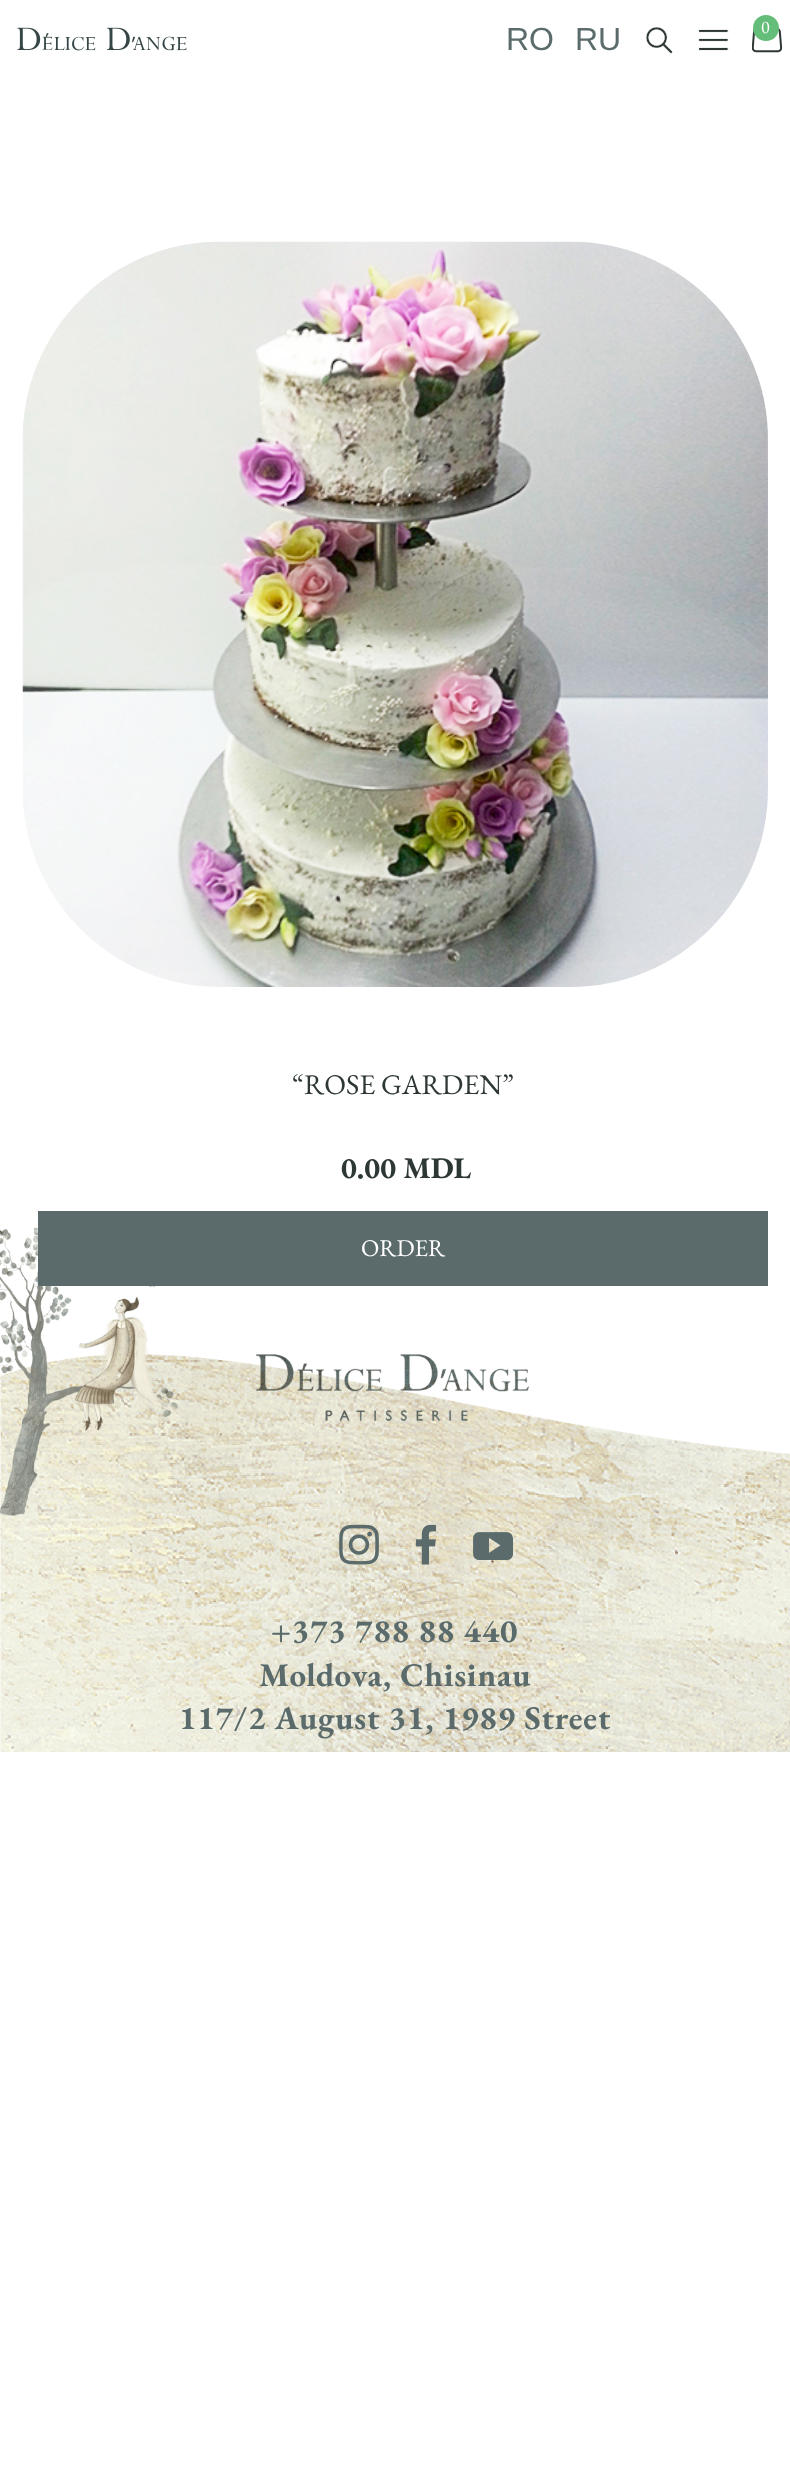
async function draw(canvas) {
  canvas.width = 790
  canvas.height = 2485
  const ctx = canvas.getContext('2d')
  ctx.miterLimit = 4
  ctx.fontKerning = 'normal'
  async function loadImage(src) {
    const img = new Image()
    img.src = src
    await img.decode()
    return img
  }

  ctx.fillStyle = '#fff'
  ctx.fillRect(0, 0, 790, 2485)
  ctx.drawImage(await loadImage('image0.png'), 17, 27, 170, 24)
  ctx.font = '32px Liberation Sans'
  ctx.fillStyle = '#5b6b6b'
  ctx.fillText('RO', 506, 50)
  ctx.fillText('RU', 575, 50)
  ctx.drawImage(await loadImage('image1.png'), 646, 27, 27, 27)
  ctx.drawImage(await loadImage('image2.png'), 698, 29, 31, 22)
  ctx.drawImage(await loadImage('image3.png'), 752, 28, 31, 25)
  ctx.fillStyle = '#64bd79'
  ctx.beginPath()
  ctx.arc(766, 28, 13, 0, 2 * Math.PI)
  ctx.fill()
  ctx.font = '18px EB Garamond'
  ctx.fillStyle = '#fff'
  ctx.fillText('0', 761, 33)
  ctx.drawImage(await loadImage('image4.png'), 22, 241, 746, 746)
  ctx.font = '28.5px EB Garamond'
  ctx.fillStyle = '#2d3735'
  ctx.fillText('“ROSE GARDEN”', 292, 1094)
  ctx.font = 'bold 30px EB Garamond'
  ctx.fillText('0.00 MDL', 341, 1178)
  ctx.drawImage(await loadImage('image5.png'), 0, 1354, 790, 398)
  ctx.drawImage(await loadImage('image6.png'), 0, 1227, 190, 289)
  ctx.fillStyle = '#5b6b6b'
  ctx.fillRect(38, 1211, 730, 75)
  ctx.font = '24px EB Garamond'
  ctx.fillStyle = '#fff'
  ctx.fillText('ORDER', 361, 1256)
  ctx.drawImage(await loadImage('image7.png'), 255, 1354, 275, 68)
  ctx.drawImage(await loadImage('image8.png'), 339, 1524, 40, 41)
  ctx.drawImage(await loadImage('image9.png'), 416, 1524, 21, 41)
  ctx.drawImage(await loadImage('image10.png'), 473, 1532, 40, 28)
  ctx.letterSpacing = '0.8px'
  ctx.font = 'bold 33px EB Garamond'
  ctx.fillStyle = '#5b6b6b'
  ctx.fillText('+373 788 88 440', 271, 1642)
  ctx.fillText('Moldova, Chisinau', 259, 1686)
  ctx.fillText('117/2 August 31, 1989 Street', 179, 1729)
}

draw(document.querySelector('canvas'))
